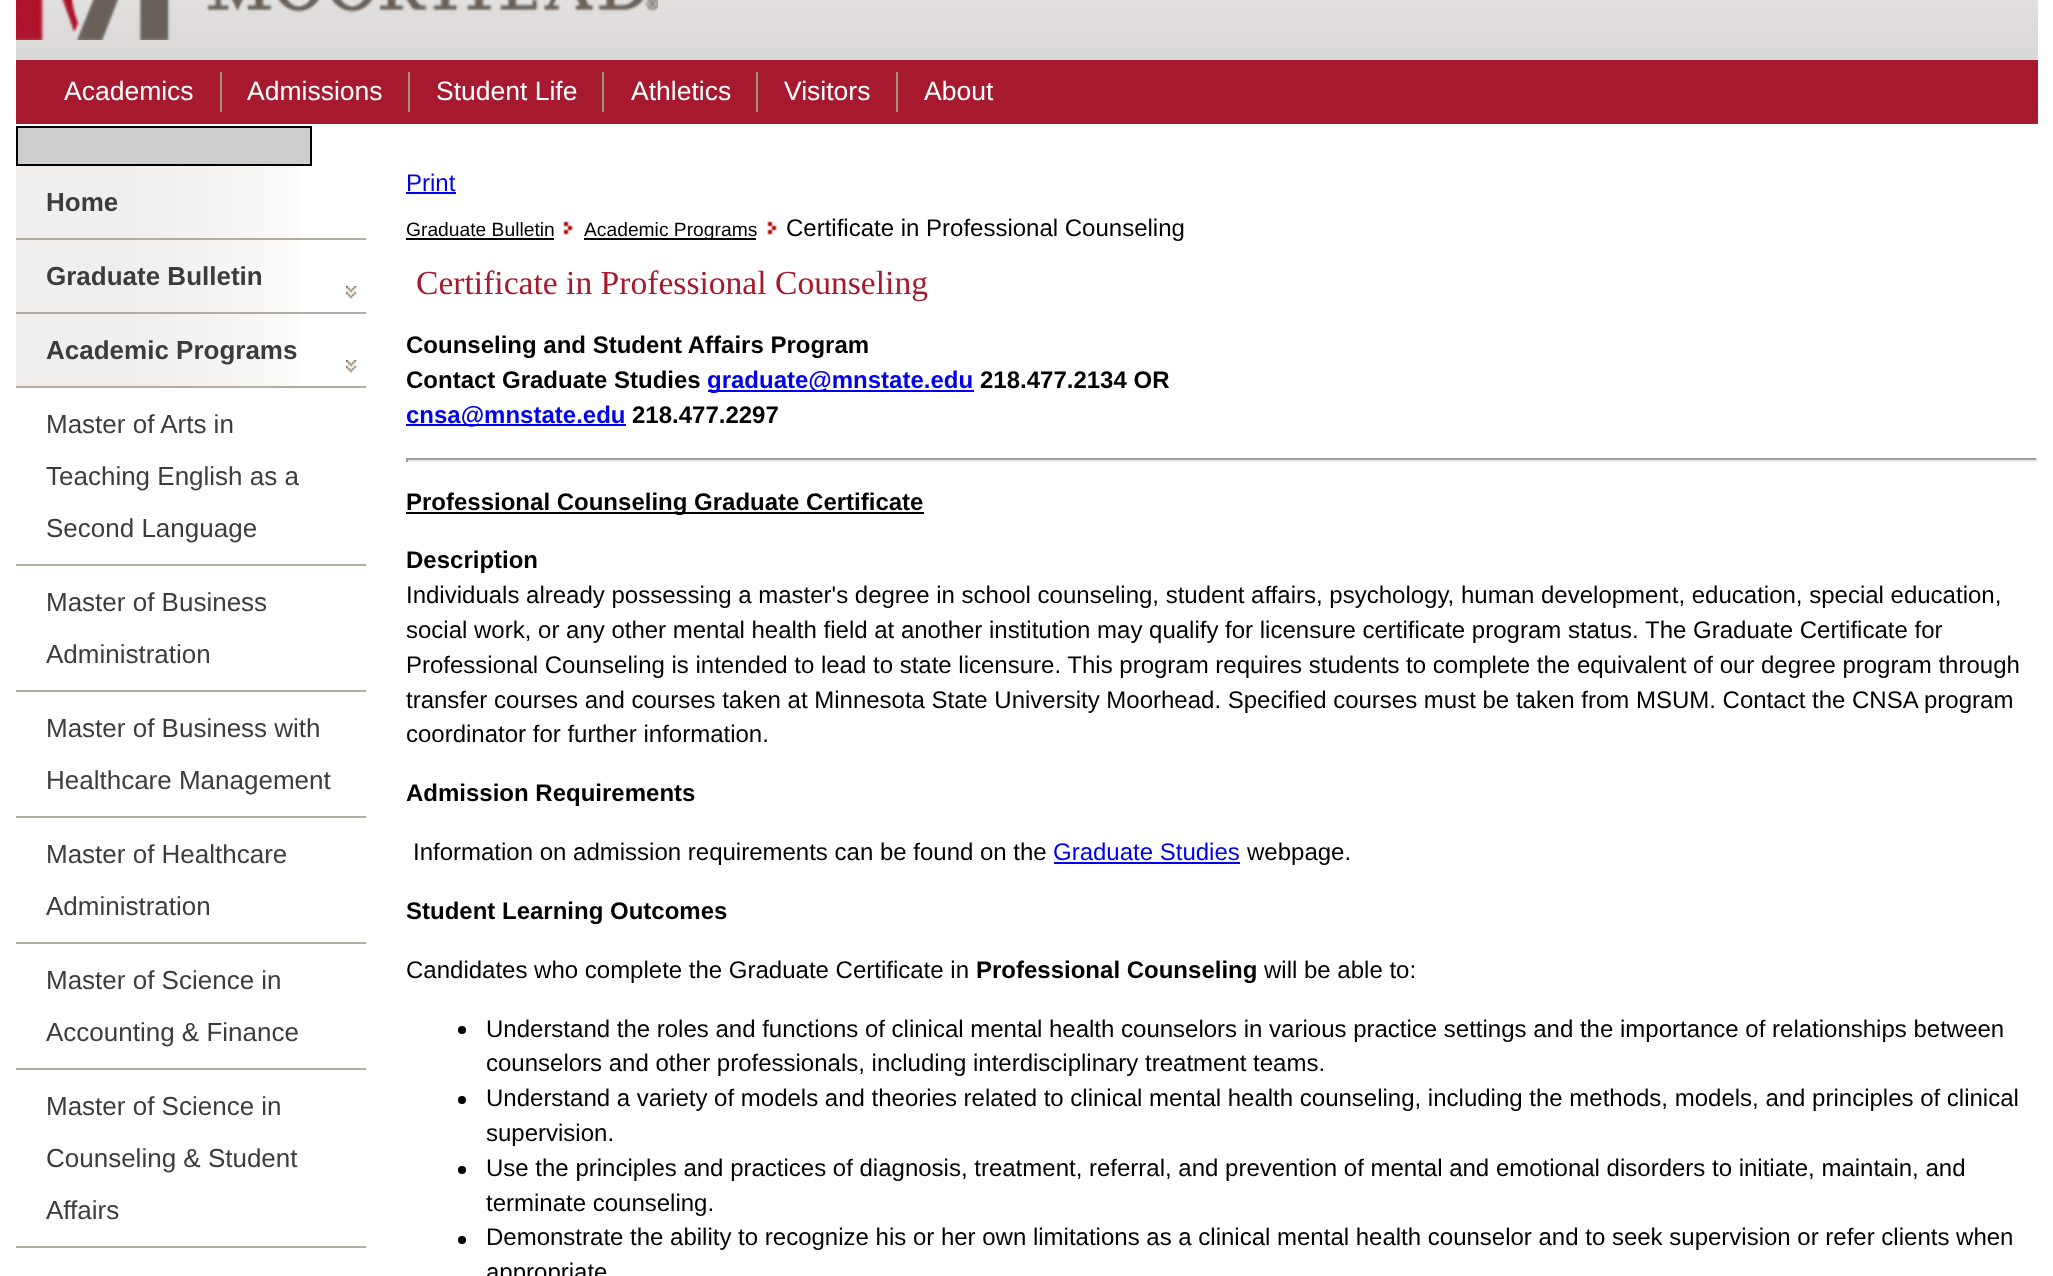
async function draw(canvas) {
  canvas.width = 2053
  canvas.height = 1276
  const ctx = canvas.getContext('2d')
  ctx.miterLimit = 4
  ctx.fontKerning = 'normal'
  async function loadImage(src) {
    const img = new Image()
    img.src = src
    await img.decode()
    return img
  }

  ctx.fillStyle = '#fff'
  ctx.fillRect(0, 0, 2053, 1276)
  ctx.drawImage(await loadImage('image0.png'), 16, 0, 2022, 60)
  ctx.drawImage(await loadImage('image1.png'), 16, 0, 642, 40)
  ctx.fillStyle = '#a6192e'
  ctx.fillRect(16, 60, 2022, 64)
  ctx.fillStyle = '#9d9283'
  ctx.fillRect(220, 72, 2, 40)
  ctx.font = '26.5px Liberation Sans'
  ctx.fillStyle = '#fff'
  ctx.fillText('Academics', 64, 100)
  ctx.fillStyle = '#9d9283'
  ctx.fillRect(408, 72, 2, 40)
  ctx.fillStyle = '#fff'
  ctx.fillText('Admissions', 247, 100)
  ctx.fillStyle = '#9d9283'
  ctx.fillRect(602, 72, 2, 40)
  ctx.fillStyle = '#fff'
  ctx.fillText('Student Life', 436, 100)
  ctx.fillStyle = '#9d9283'
  ctx.fillRect(756, 72, 2, 40)
  ctx.fillStyle = '#fff'
  ctx.fillText('Athletics', 631, 100)
  ctx.fillStyle = '#9d9283'
  ctx.fillRect(896, 72, 2, 40)
  ctx.fillStyle = '#fff'
  ctx.fillText('Visitors', 784, 100)
  ctx.fillText('About', 924, 100)
  ctx.fillStyle = '#cecece'
  ctx.beginPath()
  ctx.rect(17, 127, 294, 38)
  ctx.fill()
  ctx.strokeStyle = '#000'
  ctx.lineWidth = 2
  ctx.stroke()
  ctx.drawImage(await loadImage('image2.png'), 16, 166, 283, 220)
  ctx.fillStyle = '#b4aca1'
  ctx.fillRect(16, 238, 350, 2)
  ctx.font = 'bold 26px Liberation Sans'
  ctx.fillStyle = '#3d3c3b'
  ctx.fillText('Home', 46, 211)
  ctx.drawImage(await loadImage('image3.png'), 346, 286, 11, 13)
  ctx.fillStyle = '#b4aca1'
  ctx.fillRect(16, 312, 350, 2)
  ctx.fillStyle = '#3d3c3b'
  ctx.fillText('Graduate Bulletin', 46, 285)
  ctx.drawImage(await loadImage('image3.png'), 346, 360, 11, 13)
  ctx.fillStyle = '#b4aca1'
  ctx.fillRect(16, 386, 350, 2)
  ctx.fillStyle = '#3d3c3b'
  ctx.fillText('Academic Programs', 46, 359)
  ctx.fillStyle = '#b4aca1'
  ctx.fillRect(16, 564, 350, 2)
  ctx.font = '26px Liberation Sans'
  ctx.fillStyle = '#3d3c3b'
  ctx.fillText('Master of Arts in', 46, 433)
  ctx.fillText('Teaching English as a', 46, 485)
  ctx.fillText('Second Language', 46, 537)
  ctx.fillStyle = '#b4aca1'
  ctx.fillRect(16, 690, 350, 2)
  ctx.fillStyle = '#3d3c3b'
  ctx.fillText('Master of Business', 46, 611)
  ctx.fillText('Administration', 46, 663)
  ctx.fillStyle = '#b4aca1'
  ctx.fillRect(16, 816, 350, 2)
  ctx.fillStyle = '#3d3c3b'
  ctx.fillText('Master of Business with', 46, 737)
  ctx.fillText('Healthcare Management', 46, 789)
  ctx.fillStyle = '#b4aca1'
  ctx.fillRect(16, 942, 350, 2)
  ctx.fillStyle = '#3d3c3b'
  ctx.fillText('Master of Healthcare', 46, 863)
  ctx.fillText('Administration', 46, 915)
  ctx.fillStyle = '#b4aca1'
  ctx.fillRect(16, 1068, 350, 2)
  ctx.fillStyle = '#3d3c3b'
  ctx.fillText('Master of Science in', 46, 989)
  ctx.fillText('Accounting & Finance', 46, 1041)
  ctx.fillStyle = '#b4aca1'
  ctx.fillRect(16, 1246, 350, 2)
  ctx.fillStyle = '#3d3c3b'
  ctx.fillText('Master of Science in', 46, 1115)
  ctx.fillText('Counseling & Student', 46, 1167)
  ctx.fillText('Affairs', 46, 1219)
  ctx.font = '24px Liberation Sans'
  ctx.fillStyle = '#00e'
  ctx.fillText('Print', 406, 191)
  ctx.fillRect(406, 192, 50, 2)
  ctx.font = '19.25px Liberation Sans'
  ctx.fillStyle = '#000'
  ctx.fillText('Graduate Bulletin', 406, 236)
  ctx.fillRect(406, 238, 148, 2)
  ctx.drawImage(await loadImage('image4.png'), 563, 221, 10, 14)
  ctx.fillRect(584, 238, 172, 2)
  ctx.fillText('Academic Programs', 584, 236)
  ctx.drawImage(await loadImage('image4.png'), 767, 221, 10, 14)
  ctx.font = '24px Liberation Sans'
  ctx.fillText('Certificate in Professional Counseling', 786, 236)
  ctx.font = '33.6px Liberation Serif'
  ctx.fillStyle = '#a6192e'
  ctx.fillText('Certificate in Professional Counseling', 416, 294)
  ctx.font = 'bold 24px Liberation Sans'
  ctx.fillStyle = '#000'
  ctx.fillText('Counseling and Student Affairs Program', 406, 353)
  ctx.fillText('Contact Graduate Studies', 406, 388)
  ctx.fillStyle = '#00e'
  ctx.fillRect(708, 390, 266, 2)
  ctx.fillText('graduate@mnstate.edu', 707, 388)
  ctx.fillStyle = '#000'
  ctx.fillText('218.477.2134 OR', 980, 388)
  ctx.fillStyle = '#00e'
  ctx.fillRect(406, 424, 220, 2)
  ctx.fillText('cnsa@mnstate.edu', 406, 423)
  ctx.fillStyle = '#000'
  ctx.fillText('218.477.2297', 632, 423)
  ctx.fillStyle = '#9f9f9f'
  ctx.fillRect(406, 458, 1632, 2)
  ctx.fillStyle = '#eee'
  ctx.fillRect(2036, 458, 2, 4)
  ctx.fillRect(406, 460, 1632, 2)
  ctx.fillStyle = '#9f9f9f'
  ctx.fillRect(406, 458, 2, 4)
  ctx.fillStyle = '#000'
  ctx.fillRect(406, 512, 518, 2)
  ctx.fillText('Professional Counseling Graduate Certificate', 406, 510)
  ctx.fillText('Description', 406, 568)
  ctx.font = '24px Liberation Sans'
  ctx.fillText('Individuals already possessing a master\'s degree in school counseling, student affairs, psychology, human development, education, special education,', 406, 603)
  ctx.fillText('social work, or any other mental health field at another institution may qualify for licensure certificate program status.', 406, 638)
  ctx.fillText('The Graduate Certificate for', 1645, 638)
  ctx.fillText('Professional Counseling is intended to lead to state licensure. This program requires students to complete the equivalent of our degree program through', 406, 673)
  ctx.fillText('transfer courses and courses taken at Minnesota State University Moorhead. Specified courses must be taken from MSUM. Contact the CNSA program', 406, 708)
  ctx.fillText('coordinator for further information.', 406, 742)
  ctx.font = 'bold 24px Liberation Sans'
  ctx.fillText('Admission Requirements', 406, 801)
  ctx.font = '24px Liberation Sans'
  ctx.fillText('Information on admission requirements can be found on the', 413, 860)
  ctx.fillStyle = '#00e'
  ctx.fillText('Graduate Studies', 1053, 860)
  ctx.fillRect(1054, 862, 186, 2)
  ctx.fillStyle = '#000'
  ctx.fillText('webpage.', 1247, 860)
  ctx.font = 'bold 24px Liberation Sans'
  ctx.fillText('Student Learning Outcomes', 406, 919)
  ctx.font = '24px Liberation Sans'
  ctx.fillText('Candidates who complete the Graduate Certificate in', 406, 978)
  ctx.font = 'bold 24px Liberation Sans'
  ctx.fillText('Professional Counseling', 976, 978)
  ctx.font = '24px Liberation Sans'
  ctx.fillText('will be able to:', 1264, 978)
  ctx.beginPath()
  ctx.arc(462, 1030, 4, 0, 2 * Math.PI)
  ctx.fill()
  ctx.fillText('Understand the roles and functions of clinical mental health counselors in various practice settings and the importance of relationships between', 486, 1037)
  ctx.fillText('counselors and other professionals, including interdisciplinary treatment teams.', 486, 1071)
  ctx.beginPath()
  ctx.arc(462, 1100, 4, 0, 2 * Math.PI)
  ctx.fill()
  ctx.fillText('Understand a variety of models and theories related to clinical mental health counseling, including the methods, models, and principles of clinical', 486, 1106)
  ctx.fillText('supervision.', 486, 1141)
  ctx.beginPath()
  ctx.arc(462, 1170, 4, 0, 2 * Math.PI)
  ctx.fill()
  ctx.fillText('Use the principles and practices of diagnosis, treatment, referral, and prevention of mental and emotional disorders to initiate, maintain, and', 486, 1176)
  ctx.fillText('terminate counseling.', 486, 1211)
  ctx.beginPath()
  ctx.arc(462, 1240, 4, 0, 2 * Math.PI)
  ctx.fill()
  ctx.fillText('Demonstrate the ability to recognize his or her own limitations as a clinical mental health counselor and to seek supervision or refer clients when', 486, 1245)
  ctx.fillText('appropriate', 486, 1280)
}

draw(document.querySelector('canvas'))
